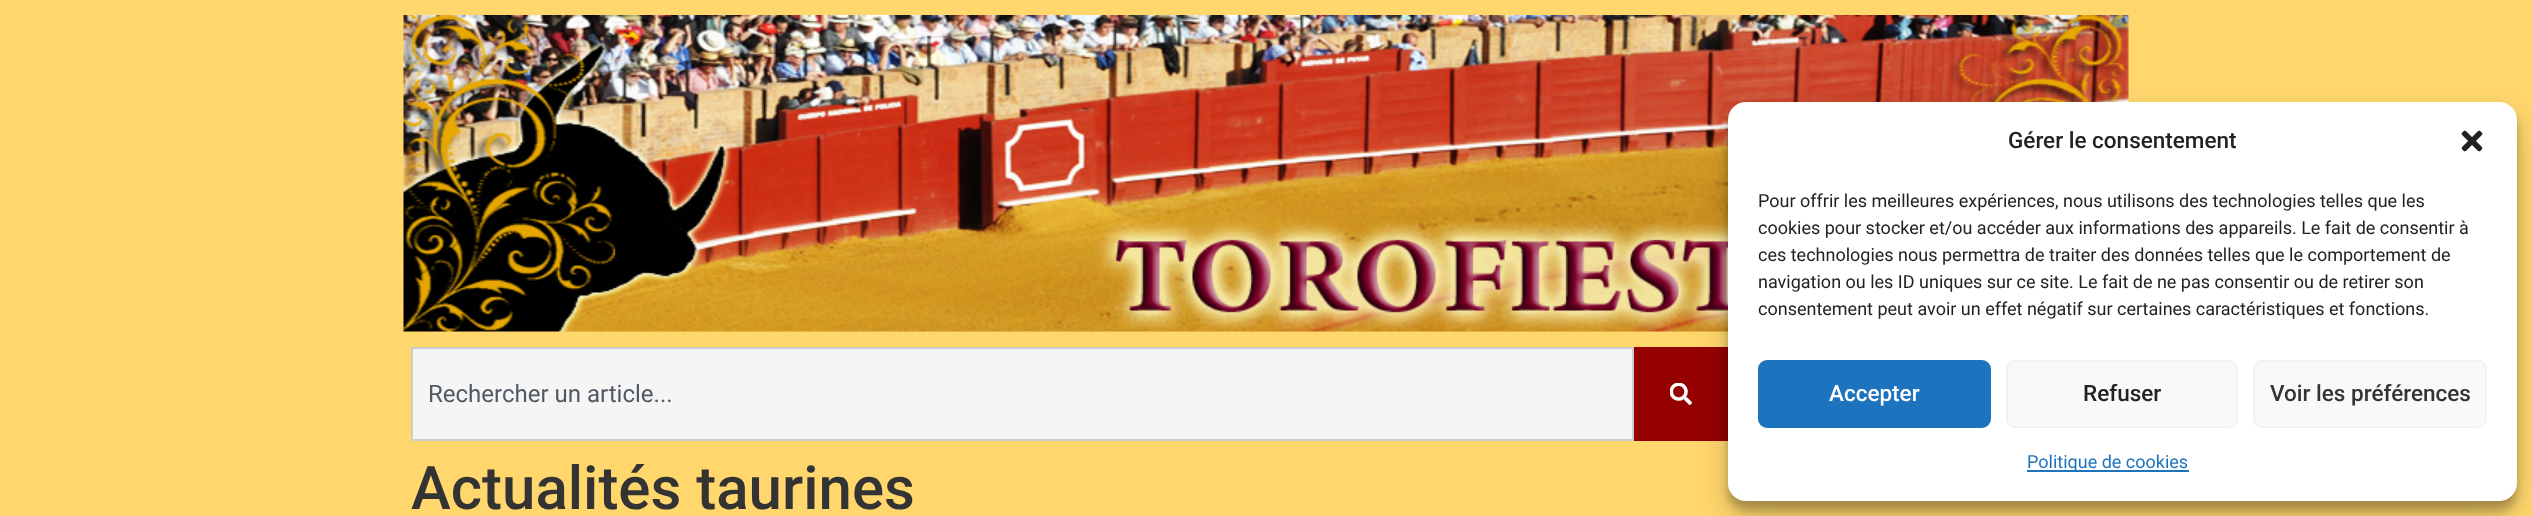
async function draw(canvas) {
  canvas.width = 2532
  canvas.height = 516
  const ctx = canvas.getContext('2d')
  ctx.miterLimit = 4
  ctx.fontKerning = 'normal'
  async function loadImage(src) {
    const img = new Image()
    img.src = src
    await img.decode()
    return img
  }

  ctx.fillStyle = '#ffd76d'
  ctx.fillRect(0, 0, 2532, 516)
  ctx.drawImage(await loadImage('image0.png'), 403, 15, 1726, 317)
  ctx.fillStyle = '#f5f5f5'
  ctx.beginPath()
  ctx.rect(412, 348, 1221, 92)
  ctx.fill()
  ctx.strokeStyle = '#cdcdcd'
  ctx.lineWidth = 2
  ctx.stroke()
  ctx.font = '24px Roboto'
  ctx.fillStyle = '#515962'
  ctx.fillText('Rechercher un article...', 428, 402)
  ctx.fillStyle = '#950101'
  ctx.fillRect(1634, 347, 94, 94)
  ctx.drawImage(await loadImage('image1.png'), 1670, 383, 22, 22)
  ctx.fillStyle = '#0000003b'
  ctx.filter = 'blur(4.5px)'
  ctx.beginPath()
  ctx.roundRect(1728, 111, 789, 399, 18)
  ctx.fill()
  ctx.filter = 'none'
  ctx.fillStyle = '#00000030'
  ctx.filter = 'blur(15px)'
  ctx.beginPath()
  ctx.roundRect(1728, 117, 789, 399, 18)
  ctx.fill()
  ctx.filter = 'none'
  ctx.fillStyle = '#fff'
  ctx.beginPath()
  ctx.roundRect(1728, 102, 789, 399, 18)
  ctx.fill()
  ctx.font = '500 22.5px Roboto'
  ctx.fillStyle = '#222'
  ctx.fillText('Gérer le consentement', 2008, 148)
  ctx.drawImage(await loadImage('image2.png'), 2461, 130, 22, 22)
  ctx.font = '18px Roboto'
  ctx.fillText('Pour offrir les meilleures expériences, nous utilisons des technologies telles que les', 1758, 207)
  ctx.fillText('cookies pour stocker et/ou accéder aux informations des appareils. Le fait de consentir à', 1758, 234)
  ctx.fillText('ces technologies nous permettra de traiter des données telles que le comportement de', 1758, 261)
  ctx.fillText('navigation ou les ID uniques sur ce site. Le fait de ne pas consentir ou de retirer son', 1758, 288)
  ctx.fillText('consentement peut avoir un effet négatif sur certaines caractéristiques et fonctions.', 1758, 315)
  ctx.fillStyle = '#1e73be'
  ctx.beginPath()
  ctx.roundRect(1759, 361, 231, 66, 8)
  ctx.fill()
  ctx.strokeStyle = '#1e73be'
  ctx.stroke()
  ctx.font = '500 22.5px Roboto'
  ctx.fillStyle = '#fff'
  ctx.fillText('Accepter', 1829, 401)
  ctx.fillStyle = '#f9f9f9'
  ctx.beginPath()
  ctx.roundRect(2007, 361, 230, 66, 8)
  ctx.fill()
  ctx.strokeStyle = '#f2f2f2'
  ctx.stroke()
  ctx.fillStyle = '#222'
  ctx.fillText('Refuser', 2083, 401)
  ctx.fillStyle = '#f9f9f9'
  ctx.beginPath()
  ctx.roundRect(2254, 361, 232, 66, 8)
  ctx.fill()
  ctx.stroke()
  ctx.fillStyle = '#333'
  ctx.fillText('Voir les préférences', 2270, 401)
  ctx.fillStyle = '#1e73be'
  ctx.fillRect(2027, 470, 162, 2)
  ctx.font = '18px Roboto'
  ctx.fillText('Politique de cookies', 2027, 468)
  ctx.font = '500 60px Roboto'
  ctx.fillStyle = '#333'
  ctx.fillText('Actualités taurines', 411, 509)
}

draw(document.querySelector('canvas'))
